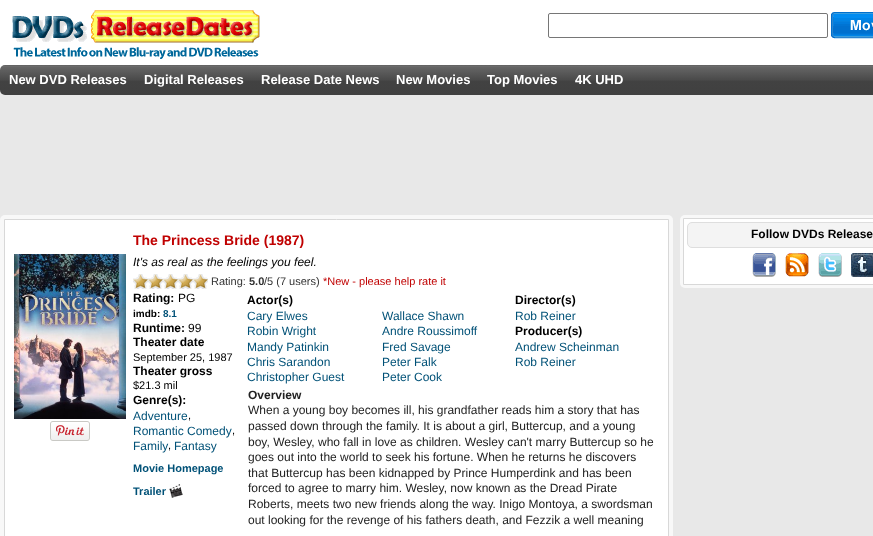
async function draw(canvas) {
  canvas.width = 873
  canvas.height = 536
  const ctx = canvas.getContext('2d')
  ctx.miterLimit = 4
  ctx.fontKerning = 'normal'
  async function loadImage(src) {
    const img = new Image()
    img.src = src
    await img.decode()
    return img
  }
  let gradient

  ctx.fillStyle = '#e8e8e8'
  ctx.fillRect(0, 0, 873, 536)
  ctx.fillStyle = '#fff'
  ctx.fillRect(0, 0, 873, 70)
  ctx.drawImage(await loadImage('image0.png'), 12, 10, 248, 49)
  ctx.beginPath()
  ctx.roundRect(548.5, 13.5, 279, 24, 1.5)
  ctx.strokeStyle = '#767676'
  ctx.stroke()
  ctx.drawImage(await loadImage('image1.png'), 831, 12, 42, 27)
  gradient = ctx.createLinearGradient(490, 65, 490, 95)
  gradient.addColorStop(0, '#545454')
  gradient.addColorStop(0.03, '#707070')
  gradient.addColorStop(0.07, '#656565')
  gradient.addColorStop(0.51, '#494949')
  gradient.addColorStop(0.53, '#424242')
  gradient.addColorStop(1, '#404040')
  ctx.fillStyle = gradient
  ctx.beginPath()
  ctx.roundRect(0, 65, 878, 30, 5)
  ctx.fill()
  ctx.font = 'bold 13px Liberation Sans'
  ctx.fillStyle = '#fff'
  ctx.fillText('New DVD Releases', 9, 84)
  ctx.fillText('Digital Releases', 144, 84)
  ctx.fillText('Release Date News', 261, 84)
  ctx.fillText('New Movies', 396, 84)
  ctx.fillText('Top Movies', 487, 84)
  ctx.fillText('4K UHD', 575, 84)
  ctx.fillStyle = '#f8f8f8'
  ctx.beginPath()
  ctx.roundRect(0, 215, 673, 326, 5)
  ctx.fill()
  ctx.fillStyle = '#fff'
  ctx.beginPath()
  ctx.rect(4.5, 219.5, 664, 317)
  ctx.fill()
  ctx.strokeStyle = '#d8d8d8'
  ctx.stroke()
  ctx.drawImage(await loadImage('image2.png'), 14, 254, 112, 165)
  ctx.drawImage(await loadImage('image3.png'), 50, 421, 40, 20)
  ctx.font = 'bold 14px Liberation Sans'
  ctx.fillStyle = '#c00000'
  ctx.fillText('The Princess Bride (1987)', 133, 245)
  ctx.font = 'italic 12px Liberation Sans'
  ctx.fillStyle = '#000'
  ctx.fillText('It\'s as real as the feelings you feel.', 133, 266)
  ctx.drawImage(await loadImage('image4.png'), 133, 274, 75, 15)
  ctx.font = '11px Liberation Sans'
  ctx.fillStyle = '#333'
  ctx.fillText('Rating:', 211, 285)
  ctx.font = 'bold 11px Liberation Sans'
  ctx.fillText('5.0', 249, 285)
  ctx.font = '11px Liberation Sans'
  ctx.fillText('/5 (7 users)', 264, 285)
  ctx.fillStyle = '#c00000'
  ctx.fillText('*New - please help rate it', 323, 285)
  ctx.font = 'bold 12px Liberation Sans'
  ctx.fillStyle = '#000'
  ctx.fillText('Rating:', 133, 302)
  ctx.font = '12px Liberation Sans'
  ctx.fillText('PG', 178, 302)
  ctx.font = 'bold 10px Liberation Sans'
  ctx.fillText('imdb:', 133, 317)
  ctx.fillStyle = '#005177'
  ctx.fillText('8.1', 163, 317)
  ctx.font = 'bold 12px Liberation Sans'
  ctx.fillStyle = '#000'
  ctx.fillText('Runtime:', 133, 332)
  ctx.font = '12px Liberation Sans'
  ctx.fillText('99', 188, 332)
  ctx.font = 'bold 12px Liberation Sans'
  ctx.fillText('Theater date', 133, 346)
  ctx.font = '11px Liberation Sans'
  ctx.fillText('September 25, 1987', 133, 361)
  ctx.font = 'bold 12px Liberation Sans'
  ctx.fillText('Theater gross', 133, 375)
  ctx.font = '11px Liberation Sans'
  ctx.fillText('$21.3 mil', 133, 389)
  ctx.font = 'bold 12px Liberation Sans'
  ctx.fillText('Genre(s):', 133, 404)
  ctx.font = '12px Liberation Sans'
  ctx.fillStyle = '#005177'
  ctx.fillText('Adventure', 133, 420)
  ctx.font = '11px Liberation Sans'
  ctx.fillStyle = '#000'
  ctx.fillText(',', 188, 419)
  ctx.font = '12px Liberation Sans'
  ctx.fillStyle = '#005177'
  ctx.fillText('Romantic Comedy', 133, 435)
  ctx.font = '11px Liberation Sans'
  ctx.fillStyle = '#000'
  ctx.fillText(',', 232, 434)
  ctx.font = '12px Liberation Sans'
  ctx.fillStyle = '#005177'
  ctx.fillText('Family', 133, 450)
  ctx.font = '11px Liberation Sans'
  ctx.fillStyle = '#000'
  ctx.fillText(',', 168, 449)
  ctx.font = '12px Liberation Sans'
  ctx.fillStyle = '#005177'
  ctx.fillText('Fantasy', 174, 450)
  ctx.font = 'bold 11px Liberation Sans'
  ctx.fillText('Movie Homepage', 133, 472)
  ctx.fillText('Trailer', 133, 495)
  ctx.drawImage(await loadImage('image5.png'), 169, 484, 14, 14)
  ctx.font = 'bold 12px Liberation Sans'
  ctx.fillStyle = '#000'
  ctx.fillText('Actor(s)', 247, 304)
  ctx.font = '12px Liberation Sans'
  ctx.fillStyle = '#005177'
  ctx.fillText('Cary Elwes', 247, 320)
  ctx.fillText('Robin Wright', 247, 335)
  ctx.fillText('Mandy Patinkin', 247, 351)
  ctx.fillText('Chris Sarandon', 247, 366)
  ctx.fillText('Christopher Guest', 247, 381)
  ctx.fillText('Wallace Shawn', 382, 320)
  ctx.fillText('Andre Roussimoff', 382, 335)
  ctx.fillText('Fred Savage', 382, 351)
  ctx.fillText('Peter Falk', 382, 366)
  ctx.fillText('Peter Cook', 382, 381)
  ctx.font = 'bold 12px Liberation Sans'
  ctx.fillStyle = '#000'
  ctx.fillText('Director(s)', 515, 304)
  ctx.font = '12px Liberation Sans'
  ctx.fillStyle = '#005177'
  ctx.fillText('Rob Reiner', 515, 320)
  ctx.font = 'bold 12px Liberation Sans'
  ctx.fillStyle = '#000'
  ctx.fillText('Producer(s)', 515, 335)
  ctx.font = '12px Liberation Sans'
  ctx.fillStyle = '#005177'
  ctx.fillText('Andrew Scheinman', 515, 351)
  ctx.fillText('Rob Reiner', 515, 366)
  ctx.font = 'bold 12px Liberation Sans'
  ctx.fillStyle = '#222'
  ctx.fillText('Overview', 248, 399)
  ctx.font = '12px Liberation Sans'
  ctx.fillText('When a young boy becomes ill, his grandfather reads him a story that has', 248, 414)
  ctx.fillText('passed down through the family. It is about a girl, Buttercup, and a young', 248, 430)
  ctx.fillText('boy, Wesley, who fall in love as children. Wesley can\'t marry Buttercup so he', 248, 446)
  ctx.fillText('goes out into the world to seek his fortune. When he returns he discovers', 248, 461)
  ctx.fillText('that Buttercup has been kidnapped by Prince Humperdink and has been', 248, 477)
  ctx.fillText('forced to agree to marry him. Wesley, now known as the Dread Pirate', 248, 492)
  ctx.fillText('Roberts, meets two new friends along the way. Inigo Montoya, a swordsman', 248, 508)
  ctx.fillText('out looking for the revenge of his fathers death, and Fezzik a well meaning', 248, 524)
  ctx.fillStyle = '#f8f8f8'
  ctx.beginPath()
  ctx.roundRect(680, 215, 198, 73, 5)
  ctx.fill()
  ctx.fillStyle = '#fff'
  ctx.beginPath()
  ctx.rect(683.5, 218.5, 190, 66)
  ctx.fill()
  ctx.stroke()
  ctx.fillStyle = '#f4f4f4'
  ctx.beginPath()
  ctx.roundRect(687.5, 222.5, 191, 25, 4.5)
  ctx.fill()
  ctx.strokeStyle = '#dedede'
  ctx.stroke()
  ctx.font = 'bold 12px Liberation Sans'
  ctx.fillStyle = '#000'
  ctx.fillText('Follow DVDs Release', 751, 238)
  ctx.drawImage(await loadImage('image6.png'), 752, 253, 24, 24)
  ctx.drawImage(await loadImage('image7.png'), 785, 253, 24, 24)
  ctx.drawImage(await loadImage('image8.png'), 818, 253, 24, 24)
  ctx.drawImage(await loadImage('image9.png'), 851, 253, 22, 24)
}

draw(document.querySelector('canvas'))
